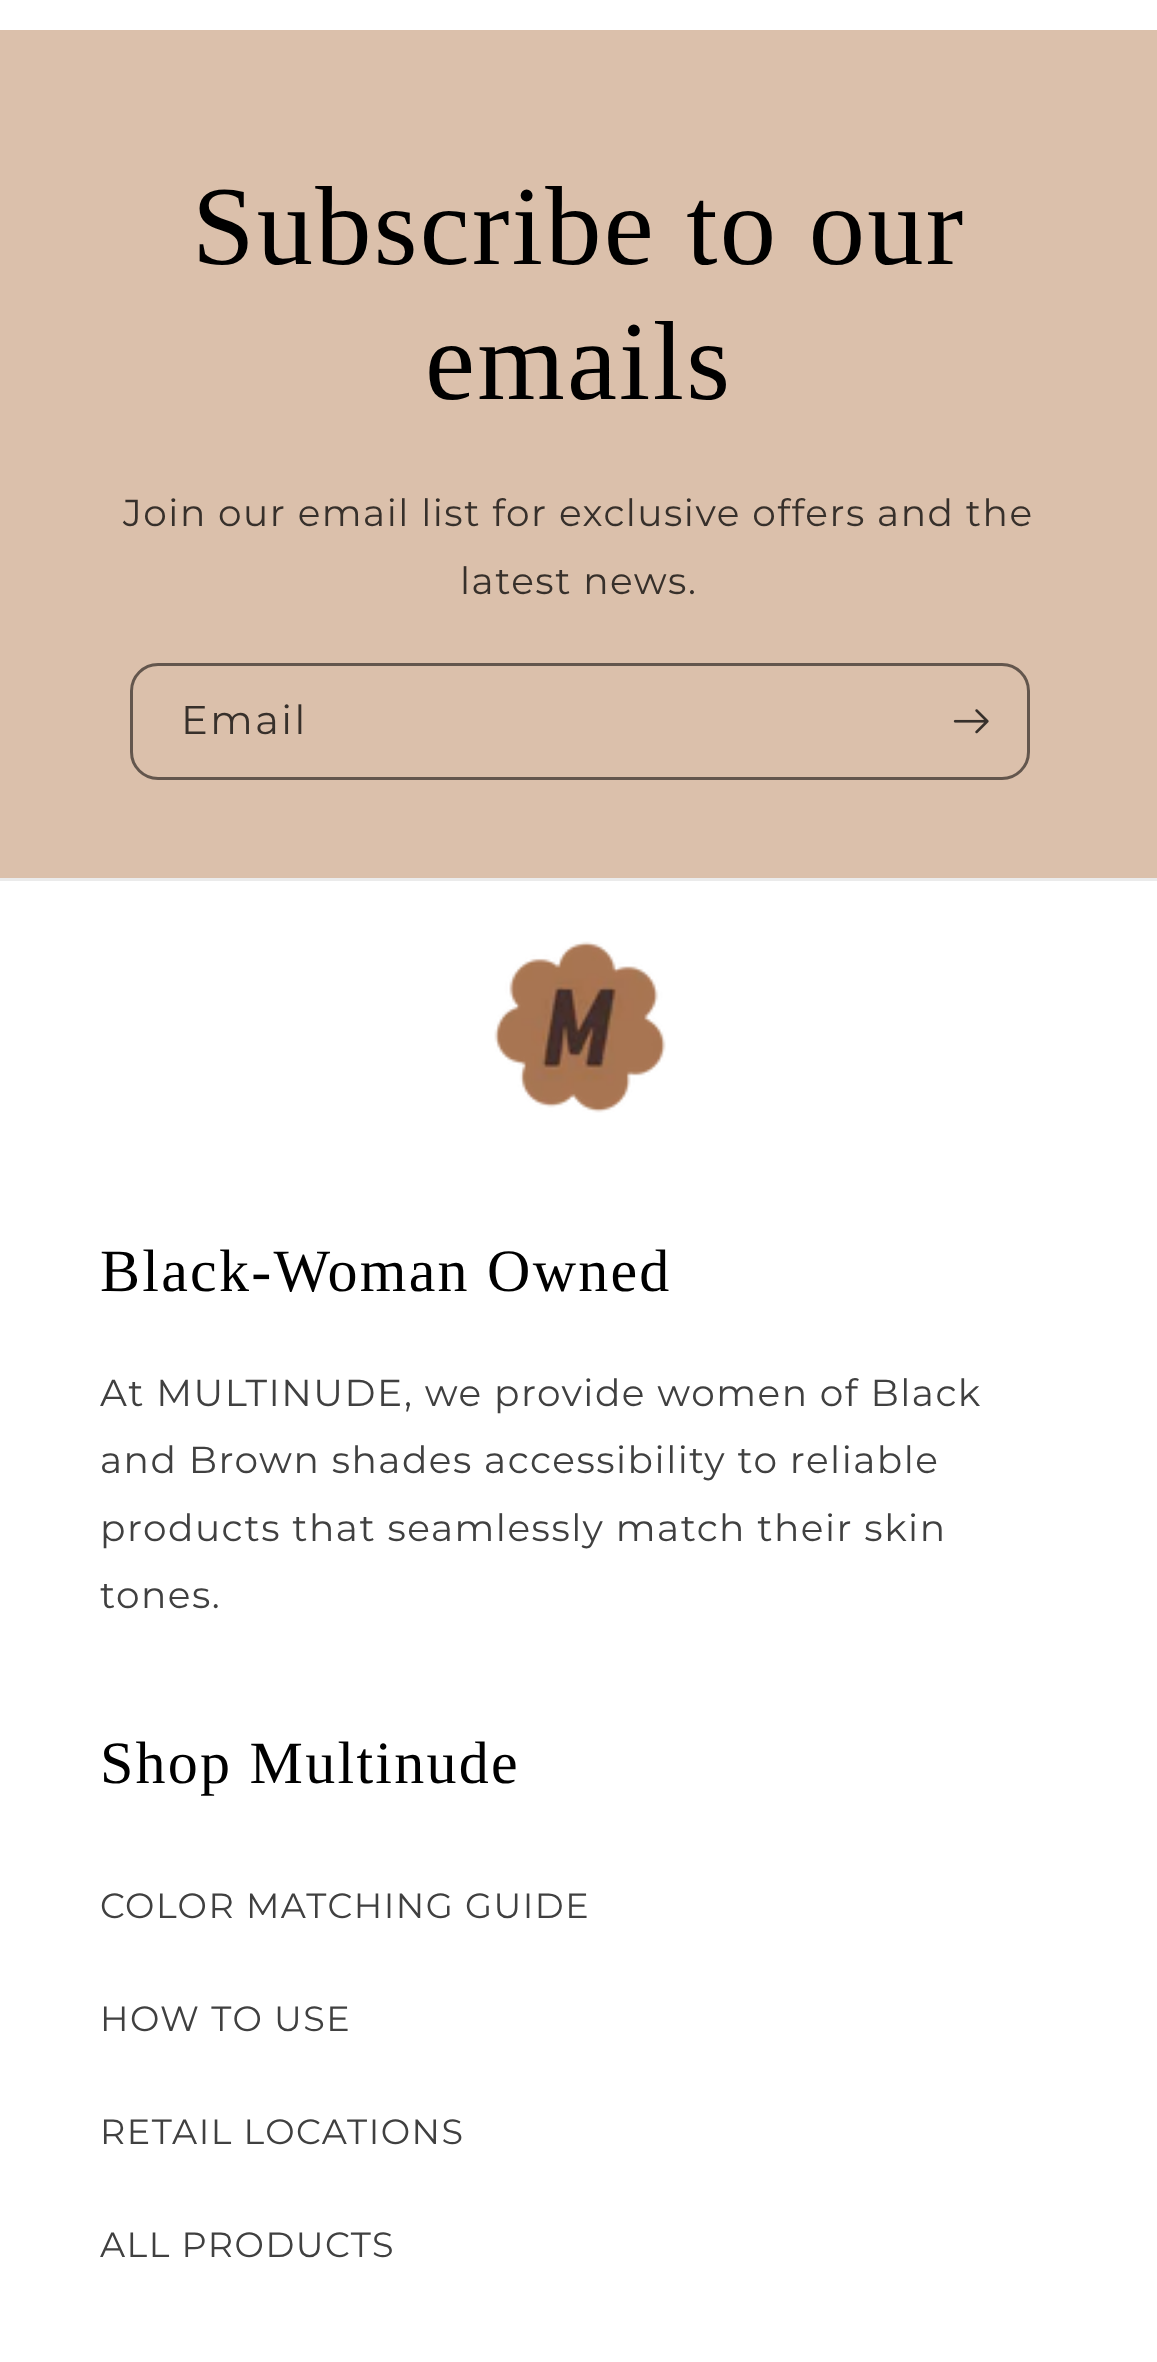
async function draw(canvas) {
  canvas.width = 1157
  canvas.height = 2362
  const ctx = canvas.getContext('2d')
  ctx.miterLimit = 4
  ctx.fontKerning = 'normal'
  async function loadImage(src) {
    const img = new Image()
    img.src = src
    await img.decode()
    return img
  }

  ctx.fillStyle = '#fff'
  ctx.fillRect(0, 0, 1157, 2362)
  ctx.fillStyle = '#dbc0ab'
  ctx.fillRect(0, 30, 1157, 848)
  ctx.letterSpacing = '2.25px'
  ctx.font = '112.5px Liberation Serif'
  ctx.fillStyle = '#000'
  ctx.fillText('Subscribe to our', 192, 264)
  ctx.fillText('emails', 425, 399)
  ctx.letterSpacing = '1.5px'
  ctx.font = '37.5px Montserrat'
  ctx.fillStyle = '#37302b'
  ctx.fillText('Join our email list for exclusive offers and the', 123, 526)
  ctx.fillText('latest news.', 460, 594)
  ctx.beginPath()
  ctx.roundRect(131.5, 664.5, 897, 114, 26.5)
  ctx.strokeStyle = '#63564d'
  ctx.lineWidth = 3
  ctx.stroke()
  ctx.letterSpacing = '2.5px'
  ctx.font = '40px Montserrat'
  ctx.fillText('Email', 181, 734)
  ctx.drawImage(await loadImage('image0.png'), 953, 709, 36, 25)
  ctx.fillStyle = '#ebebeb'
  ctx.fillRect(0, 878, 1157, 3)
  ctx.drawImage(await loadImage('image1.png'), 494, 941, 172, 172)
  ctx.letterSpacing = '2.25px'
  ctx.font = '60px Liberation Serif'
  ctx.fillStyle = '#000'
  ctx.fillText('Black-Woman Owned', 100, 1291)
  ctx.letterSpacing = '1.5px'
  ctx.font = '37.5px Montserrat'
  ctx.fillStyle = '#404040'
  ctx.fillText('At MULTINUDE, we provide women of Black', 100, 1406)
  ctx.fillText('and Brown shades accessibility to reliable', 100, 1473)
  ctx.fillText('products that seamlessly match their skin', 100, 1541)
  ctx.fillText('tones.', 100, 1608)
  ctx.letterSpacing = '2.25px'
  ctx.font = '60px Liberation Serif'
  ctx.fillStyle = '#000'
  ctx.fillText('Shop Multinude', 100, 1783)
  ctx.letterSpacing = '1.5px'
  ctx.font = '35px Montserrat'
  ctx.fillStyle = '#404040'
  ctx.fillText('COLOR MATCHING GUIDE', 100, 1918)
  ctx.fillText('HOW TO USE', 100, 2031)
  ctx.fillText('RETAIL LOCATIONS', 100, 2144)
  ctx.fillText('ALL PRODUCTS', 100, 2257)
}

draw(document.querySelector('canvas'))
